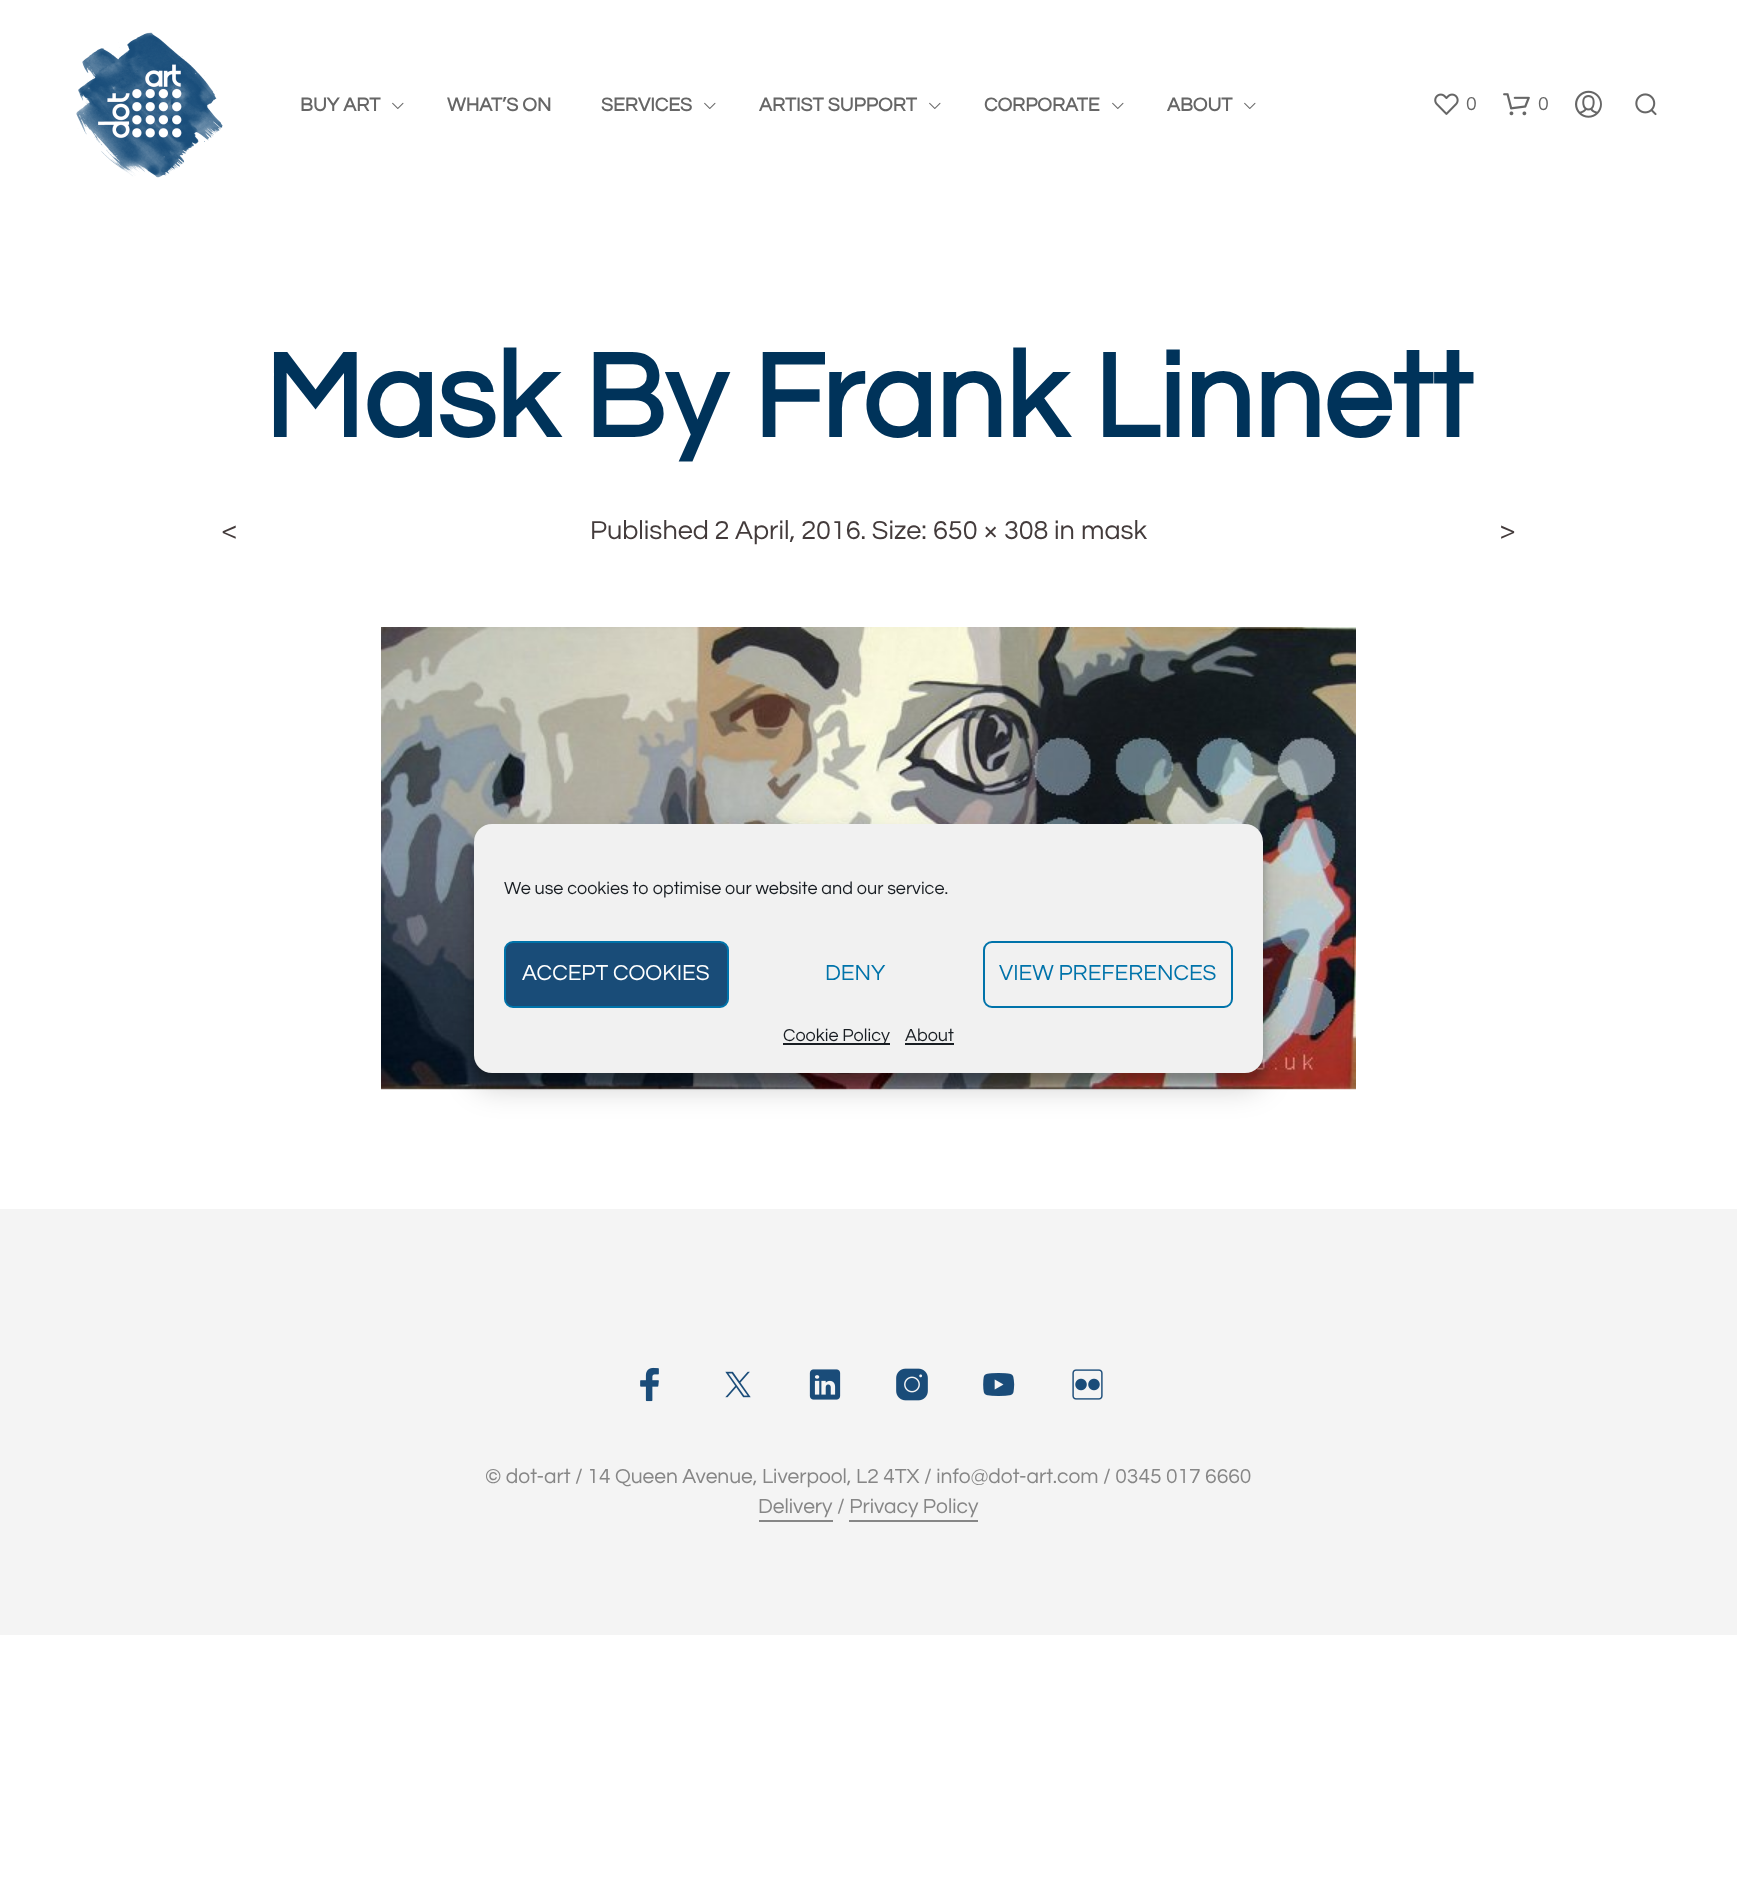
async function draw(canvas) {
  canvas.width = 1737
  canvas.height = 1895
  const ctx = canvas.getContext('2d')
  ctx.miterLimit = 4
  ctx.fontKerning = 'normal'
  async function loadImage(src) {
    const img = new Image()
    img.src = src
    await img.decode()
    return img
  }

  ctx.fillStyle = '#fff'
  ctx.fillRect(0, 0, 1737, 1895)
  ctx.drawImage(await loadImage('image0.png'), 76, 32, 147, 146)
  ctx.font = 'bold 19.5px Questrial'
  ctx.fillStyle = '#666'
  ctx.fillText('BUY ART', 300, 111)
  ctx.drawImage(await loadImage('image1.png'), 392, 102, 12, 7)
  ctx.fillText('WHAT’S ON', 447, 111)
  ctx.fillText('SERVICES', 601, 111)
  ctx.drawImage(await loadImage('image1.png'), 704, 102, 12, 7)
  ctx.fillText('ARTIST SUPPORT', 759, 111)
  ctx.drawImage(await loadImage('image1.png'), 929, 102, 12, 7)
  ctx.fillText('CORPORATE', 984, 111)
  ctx.drawImage(await loadImage('image1.png'), 1112, 102, 12, 7)
  ctx.fillText('ABOUT', 1167, 111)
  ctx.drawImage(await loadImage('image1.png'), 1244, 102, 12, 7)
  ctx.drawImage(await loadImage('image2.png'), 1434, 93, 25, 22)
  ctx.font = '19.5px Questrial'
  ctx.fillText('0', 1466, 110)
  ctx.drawImage(await loadImage('image3.png'), 1503, 93, 27, 23)
  ctx.fillText('0', 1538, 110)
  ctx.drawImage(await loadImage('image4.png'), 1575, 90, 27, 28)
  ctx.drawImage(await loadImage('image5.png'), 1635, 93, 22, 23)
  ctx.font = 'bold 123.1px Questrial'
  ctx.fillStyle = '#00335a'
  ctx.fillText('Mask By Frank Linnett', 264, 437)
  ctx.font = '27px Questrial'
  ctx.fillStyle = '#433b3b'
  ctx.fillText('Published 2 April, 2016. Size:', 590, 539)
  ctx.fillText('650 × 308', 933, 539)
  ctx.fillText('in', 1054, 539)
  ctx.fillText('mask', 1081, 539)
  ctx.fillText('<', 222, 539)
  ctx.fillText('>', 1500, 539)
  ctx.drawImage(await loadImage('image6.png'), 381, 627, 975, 463)
  ctx.fillStyle = '#f4f4f4'
  ctx.fillRect(0, 1209, 1737, 426)
  ctx.drawImage(await loadImage('image7.png'), 640, 1367, 19, 35)
  ctx.drawImage(await loadImage('image8.png'), 725, 1371, 26, 27)
  ctx.drawImage(await loadImage('image9.png'), 809, 1369, 32, 31)
  ctx.drawImage(await loadImage('image10.png'), 896, 1368, 32, 33)
  ctx.drawImage(await loadImage('image11.png'), 983, 1373, 32, 23)
  ctx.drawImage(await loadImage('image12.png'), 1072, 1369, 31, 31)
  ctx.font = '21px Questrial'
  ctx.fillStyle = '#868686'
  ctx.fillText('© dot-art / 14 Queen Avenue, Liverpool, L2 4TX / info@dot-art.com / 0345 017 6660', 485, 1483)
  ctx.fillRect(759, 1520, 74, 2)
  ctx.fillText('Delivery / Privacy Policy', 758, 1513)
  ctx.fillRect(849, 1520, 129, 2)
  ctx.fillStyle = '#0000003b'
  ctx.filter = 'blur(4.5px)'
  ctx.beginPath()
  ctx.roundRect(474, 833, 789, 249, 18)
  ctx.fill()
  ctx.filter = 'none'
  ctx.fillStyle = '#00000030'
  ctx.filter = 'blur(15px)'
  ctx.beginPath()
  ctx.roundRect(474, 839, 789, 249, 18)
  ctx.fill()
  ctx.filter = 'none'
  ctx.fillStyle = '#f1f1f1'
  ctx.beginPath()
  ctx.roundRect(474, 824, 789, 249, 18)
  ctx.fill()
  ctx.font = '18px Questrial'
  ctx.fillStyle = '#191e23'
  ctx.fillText('We use cookies to optimise our website and our service.', 504, 894)
  ctx.fillStyle = '#194c78'
  ctx.beginPath()
  ctx.roundRect(505, 942, 223, 65, 8)
  ctx.fill()
  ctx.strokeStyle = '#0073aa'
  ctx.lineWidth = 2
  ctx.stroke()
  ctx.font = '22.5px Questrial'
  ctx.fillStyle = '#fff'
  ctx.fillText('ACCEPT COOKIES', 522, 980)
  ctx.fillStyle = '#0073aa'
  ctx.fillText('DENY', 825, 980)
  ctx.beginPath()
  ctx.roundRect(984, 942, 248, 65, 8)
  ctx.stroke()
  ctx.fillText('VIEW PREFERENCES', 999, 980)
  ctx.fillStyle = '#191e23'
  ctx.fillRect(783, 1043, 107, 2)
  ctx.font = '18px Questrial'
  ctx.fillText('Cookie Policy', 783, 1041)
  ctx.fillText('About', 905, 1041)
  ctx.fillRect(905, 1043, 49, 2)
}

draw(document.querySelector('canvas'))
